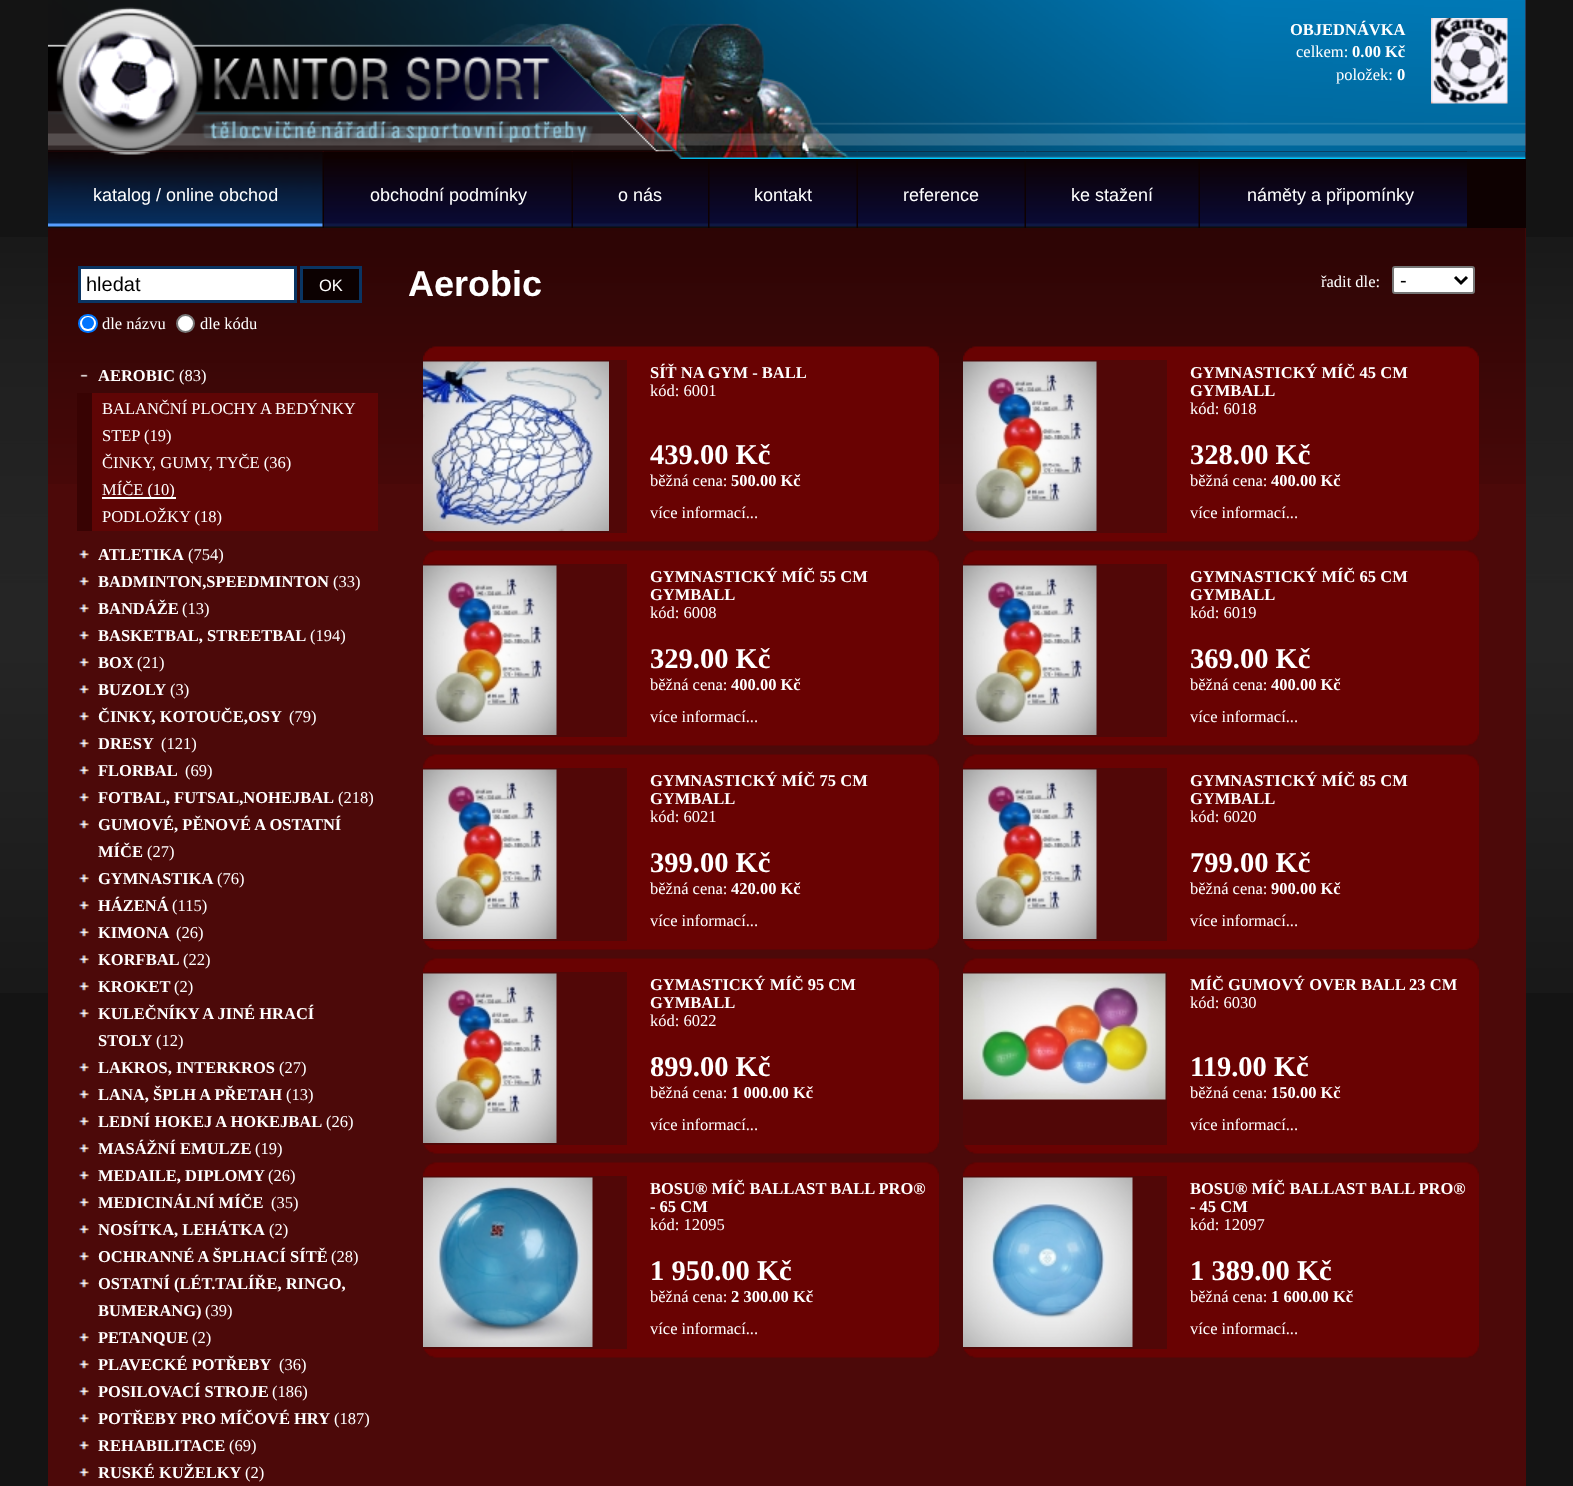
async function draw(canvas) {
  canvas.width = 1573
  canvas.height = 1486
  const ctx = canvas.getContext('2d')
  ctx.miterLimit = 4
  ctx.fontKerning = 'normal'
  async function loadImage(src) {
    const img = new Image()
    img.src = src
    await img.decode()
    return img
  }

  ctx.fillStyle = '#141414'
  ctx.fillRect(0, 0, 1573, 1486)
  ctx.drawImage(await loadImage('image24.png'), 0, 237, 1573, 756)
  ctx.fillStyle = '#4c0909'
  ctx.fillRect(48, 0, 1478, 1486)
  ctx.drawImage(await loadImage('image0.png'), 48, 0, 1478, 152)
  ctx.font = 'bold 16.5px Liberation Serif'
  ctx.fillStyle = '#fff'
  ctx.fillText('OBJEDNÁVKA', 1290, 35)
  ctx.font = '16.5px Liberation Serif'
  ctx.fillText('celkem:', 1296, 57)
  ctx.font = 'bold 16.5px Liberation Serif'
  ctx.fillText('0.00 Kč', 1352, 57)
  ctx.font = '16.5px Liberation Serif'
  ctx.fillText('položek:', 1336, 80)
  ctx.font = 'bold 16.5px Liberation Serif'
  ctx.fillText('0', 1397, 80)
  ctx.drawImage(await loadImage('image1.png'), 1431, 18, 77, 86)
  ctx.fillStyle = '#0e0101'
  ctx.fillRect(322, 152, 1204, 76)
  ctx.drawImage(await loadImage('image4.png'), 48, 151, 275, 77)
  ctx.drawImage(await loadImage('image2.png'), 109, 151, 42, 4)
  ctx.drawImage(await loadImage('image6.png'), 573, 151, 135, 77)
  ctx.drawImage(await loadImage('image7.png'), 709, 151, 148, 77)
  ctx.drawImage(await loadImage('image8.png'), 858, 151, 167, 77)
  ctx.drawImage(await loadImage('image9.png'), 1026, 151, 173, 77)
  ctx.drawImage(await loadImage('image10.png'), 1200, 151, 267, 77)
  ctx.drawImage(await loadImage('image3.png'), 673, 151, 853, 8)
  ctx.font = '18px Liberation Sans'
  ctx.fillStyle = '#fff'
  ctx.fillText('katalog / online obchod', 93, 201)
  ctx.drawImage(await loadImage('image5.png'), 324, 151, 248, 77)
  ctx.fillText('obchodní podmínky', 370, 201)
  ctx.fillText('o nás', 618, 201)
  ctx.fillText('kontakt', 754, 201)
  ctx.fillText('reference', 903, 201)
  ctx.fillText('ke stažení', 1071, 201)
  ctx.fillText('náměty a připomínky', 1247, 201)
  ctx.drawImage(await loadImage('image11.png'), 48, 228, 1478, 256)
  ctx.beginPath()
  ctx.rect(79.5, 267.5, 216, 34)
  ctx.fill()
  ctx.strokeStyle = '#0a3563'
  ctx.lineWidth = 3
  ctx.stroke()
  ctx.font = '20px Liberation Sans'
  ctx.fillStyle = '#000'
  ctx.fillText('hledat', 86, 291)
  ctx.fillStyle = '#0c0101'
  ctx.beginPath()
  ctx.rect(301.5, 267.5, 59, 34)
  ctx.fill()
  ctx.stroke()
  ctx.font = '16.5px Liberation Sans'
  ctx.fillStyle = '#fff'
  ctx.fillText('OK', 319, 291)
  ctx.beginPath()
  ctx.roundRect(79, 315, 18, 17, 8.5)
  ctx.fill()
  ctx.strokeStyle = '#0075ff'
  ctx.lineWidth = 2
  ctx.stroke()
  ctx.fillStyle = '#0075ff'
  ctx.beginPath()
  ctx.arc(88, 323, 6, 0, 2 * Math.PI)
  ctx.fill()
  ctx.font = '16.5px Liberation Serif'
  ctx.fillStyle = '#fff'
  ctx.fillText('dle názvu', 102, 329)
  ctx.beginPath()
  ctx.arc(185.5, 323.5, 8.5, 0, 2 * Math.PI)
  ctx.fill()
  ctx.strokeStyle = '#767676'
  ctx.stroke()
  ctx.fillText('dle kódu', 200, 329)
  ctx.drawImage(await loadImage('image12.png'), 80, 374, 8, 3)
  ctx.font = 'bold 16.5px Liberation Serif'
  ctx.fillText('AEROBIC', 98, 381)
  ctx.font = '16.5px Liberation Serif'
  ctx.fillText('(83)', 179, 381)
  ctx.fillStyle = '#5f0505'
  ctx.fillRect(92, 393, 286, 138)
  ctx.fillStyle = '#380303'
  ctx.fillRect(77, 393, 15, 138)
  ctx.fillStyle = '#fff'
  ctx.fillText('BALANČNÍ PLOCHY A BEDÝNKY', 102, 414)
  ctx.fillText('STEP (19)', 102, 441)
  ctx.fillText('ČINKY, GUMY, TYČE (36)', 102, 468)
  ctx.fillRect(102, 497, 74, 2)
  ctx.fillText('MÍČE (10)', 102, 495)
  ctx.fillText('PODLOŽKY (18)', 102, 522)
  ctx.drawImage(await loadImage('image13.png'), 79, 550, 10, 9)
  ctx.font = 'bold 16.5px Liberation Serif'
  ctx.fillText('ATLETIKA', 98, 560)
  ctx.font = '16.5px Liberation Serif'
  ctx.fillText('(754)', 188, 560)
  ctx.drawImage(await loadImage('image13.png'), 79, 577, 10, 9)
  ctx.font = 'bold 16.5px Liberation Serif'
  ctx.fillText('BADMINTON,SPEEDMINTON', 98, 587)
  ctx.font = '16.5px Liberation Serif'
  ctx.fillText('(33)', 333, 587)
  ctx.drawImage(await loadImage('image13.png'), 79, 604, 10, 9)
  ctx.font = 'bold 16.5px Liberation Serif'
  ctx.fillText('BANDÁŽE', 98, 614)
  ctx.font = '16.5px Liberation Serif'
  ctx.fillText('(13)', 182, 614)
  ctx.drawImage(await loadImage('image13.png'), 79, 631, 10, 9)
  ctx.font = 'bold 16.5px Liberation Serif'
  ctx.fillText('BASKETBAL, STREETBAL', 98, 641)
  ctx.font = '16.5px Liberation Serif'
  ctx.fillText('(194)', 310, 641)
  ctx.drawImage(await loadImage('image13.png'), 79, 658, 10, 9)
  ctx.font = 'bold 16.5px Liberation Serif'
  ctx.fillText('BOX', 98, 668)
  ctx.font = '16.5px Liberation Serif'
  ctx.fillText('(21)', 137, 668)
  ctx.drawImage(await loadImage('image13.png'), 79, 685, 10, 9)
  ctx.font = 'bold 16.5px Liberation Serif'
  ctx.fillText('BUZOLY', 98, 695)
  ctx.font = '16.5px Liberation Serif'
  ctx.fillText('(3)', 170, 695)
  ctx.drawImage(await loadImage('image13.png'), 79, 712, 10, 9)
  ctx.font = 'bold 16.5px Liberation Serif'
  ctx.fillText('ČINKY, KOTOUČE,OSY', 98, 722)
  ctx.font = '16.5px Liberation Serif'
  ctx.fillText('(79)', 289, 722)
  ctx.drawImage(await loadImage('image13.png'), 79, 739, 10, 9)
  ctx.font = 'bold 16.5px Liberation Serif'
  ctx.fillText('DRESY', 98, 749)
  ctx.font = '16.5px Liberation Serif'
  ctx.fillText('(121)', 161, 749)
  ctx.drawImage(await loadImage('image13.png'), 79, 766, 10, 9)
  ctx.font = 'bold 16.5px Liberation Serif'
  ctx.fillText('FLORBAL', 98, 776)
  ctx.font = '16.5px Liberation Serif'
  ctx.fillText('(69)', 185, 776)
  ctx.drawImage(await loadImage('image13.png'), 79, 793, 10, 9)
  ctx.font = 'bold 16.5px Liberation Serif'
  ctx.fillText('FOTBAL, FUTSAL,NOHEJBAL', 98, 803)
  ctx.font = '16.5px Liberation Serif'
  ctx.fillText('(218)', 338, 803)
  ctx.drawImage(await loadImage('image13.png'), 79, 820, 10, 9)
  ctx.font = 'bold 16.5px Liberation Serif'
  ctx.fillText('GUMOVÉ, PĚNOVÉ A OSTATNÍ', 98, 830)
  ctx.fillText('MÍČE', 98, 857)
  ctx.font = '16.5px Liberation Serif'
  ctx.fillText('(27)', 147, 857)
  ctx.drawImage(await loadImage('image13.png'), 79, 874, 10, 9)
  ctx.font = 'bold 16.5px Liberation Serif'
  ctx.fillText('GYMNASTIKA', 98, 884)
  ctx.font = '16.5px Liberation Serif'
  ctx.fillText('(76)', 217, 884)
  ctx.drawImage(await loadImage('image13.png'), 79, 901, 10, 9)
  ctx.font = 'bold 16.5px Liberation Serif'
  ctx.fillText('HÁZENÁ', 98, 911)
  ctx.font = '16.5px Liberation Serif'
  ctx.fillText('(115)', 172, 911)
  ctx.drawImage(await loadImage('image13.png'), 79, 928, 10, 9)
  ctx.font = 'bold 16.5px Liberation Serif'
  ctx.fillText('KIMONA', 98, 938)
  ctx.font = '16.5px Liberation Serif'
  ctx.fillText('(26)', 176, 938)
  ctx.drawImage(await loadImage('image13.png'), 79, 955, 10, 9)
  ctx.font = 'bold 16.5px Liberation Serif'
  ctx.fillText('KORFBAL', 98, 965)
  ctx.font = '16.5px Liberation Serif'
  ctx.fillText('(22)', 183, 965)
  ctx.drawImage(await loadImage('image13.png'), 79, 982, 10, 9)
  ctx.font = 'bold 16.5px Liberation Serif'
  ctx.fillText('KROKET', 98, 992)
  ctx.font = '16.5px Liberation Serif'
  ctx.fillText('(2)', 174, 992)
  ctx.drawImage(await loadImage('image13.png'), 79, 1009, 10, 9)
  ctx.font = 'bold 16.5px Liberation Serif'
  ctx.fillText('KULEČNÍKY A JINÉ HRACÍ', 98, 1019)
  ctx.fillText('STOLY', 98, 1046)
  ctx.font = '16.5px Liberation Serif'
  ctx.fillText('(12)', 156, 1046)
  ctx.drawImage(await loadImage('image13.png'), 79, 1063, 10, 9)
  ctx.font = 'bold 16.5px Liberation Serif'
  ctx.fillText('LAKROS, INTERKROS', 98, 1073)
  ctx.font = '16.5px Liberation Serif'
  ctx.fillText('(27)', 279, 1073)
  ctx.drawImage(await loadImage('image13.png'), 79, 1090, 10, 9)
  ctx.font = 'bold 16.5px Liberation Serif'
  ctx.fillText('LANA, ŠPLH A PŘETAH', 98, 1100)
  ctx.font = '16.5px Liberation Serif'
  ctx.fillText('(13)', 286, 1100)
  ctx.drawImage(await loadImage('image13.png'), 79, 1117, 10, 9)
  ctx.font = 'bold 16.5px Liberation Serif'
  ctx.fillText('LEDNÍ HOKEJ A HOKEJBAL', 98, 1127)
  ctx.font = '16.5px Liberation Serif'
  ctx.fillText('(26)', 326, 1127)
  ctx.drawImage(await loadImage('image13.png'), 79, 1144, 10, 9)
  ctx.font = 'bold 16.5px Liberation Serif'
  ctx.fillText('MASÁŽNÍ EMULZE', 98, 1154)
  ctx.font = '16.5px Liberation Serif'
  ctx.fillText('(19)', 255, 1154)
  ctx.drawImage(await loadImage('image13.png'), 79, 1171, 10, 9)
  ctx.font = 'bold 16.5px Liberation Serif'
  ctx.fillText('MEDAILE, DIPLOMY', 98, 1181)
  ctx.font = '16.5px Liberation Serif'
  ctx.fillText('(26)', 268, 1181)
  ctx.drawImage(await loadImage('image13.png'), 79, 1198, 10, 9)
  ctx.font = 'bold 16.5px Liberation Serif'
  ctx.fillText('MEDICINÁLNÍ MÍČE', 98, 1208)
  ctx.font = '16.5px Liberation Serif'
  ctx.fillText('(35)', 271, 1208)
  ctx.drawImage(await loadImage('image13.png'), 79, 1225, 10, 9)
  ctx.font = 'bold 16.5px Liberation Serif'
  ctx.fillText('NOSÍTKA, LEHÁTKA', 98, 1235)
  ctx.font = '16.5px Liberation Serif'
  ctx.fillText('(2)', 269, 1235)
  ctx.drawImage(await loadImage('image13.png'), 79, 1252, 10, 9)
  ctx.font = 'bold 16.5px Liberation Serif'
  ctx.fillText('OCHRANNÉ A ŠPLHACÍ SÍTĚ', 98, 1262)
  ctx.font = '16.5px Liberation Serif'
  ctx.fillText('(28)', 331, 1262)
  ctx.drawImage(await loadImage('image13.png'), 79, 1279, 10, 9)
  ctx.font = 'bold 16.5px Liberation Serif'
  ctx.fillText('OSTATNÍ (LÉT.TALÍŘE, RINGO,', 98, 1289)
  ctx.fillText('BUMERANG)', 98, 1316)
  ctx.font = '16.5px Liberation Serif'
  ctx.fillText('(39)', 205, 1316)
  ctx.drawImage(await loadImage('image13.png'), 79, 1333, 10, 9)
  ctx.font = 'bold 16.5px Liberation Serif'
  ctx.fillText('PETANQUE', 98, 1343)
  ctx.font = '16.5px Liberation Serif'
  ctx.fillText('(2)', 192, 1343)
  ctx.drawImage(await loadImage('image13.png'), 79, 1360, 10, 9)
  ctx.font = 'bold 16.5px Liberation Serif'
  ctx.fillText('PLAVECKÉ POTŘEBY', 98, 1370)
  ctx.font = '16.5px Liberation Serif'
  ctx.fillText('(36)', 279, 1370)
  ctx.drawImage(await loadImage('image13.png'), 79, 1387, 10, 9)
  ctx.font = 'bold 16.5px Liberation Serif'
  ctx.fillText('POSILOVACÍ STROJE', 98, 1397)
  ctx.font = '16.5px Liberation Serif'
  ctx.fillText('(186)', 272, 1397)
  ctx.drawImage(await loadImage('image13.png'), 79, 1414, 10, 9)
  ctx.font = 'bold 16.5px Liberation Serif'
  ctx.fillText('POTŘEBY PRO MÍČOVÉ HRY', 98, 1424)
  ctx.font = '16.5px Liberation Serif'
  ctx.fillText('(187)', 334, 1424)
  ctx.drawImage(await loadImage('image13.png'), 79, 1441, 10, 9)
  ctx.font = 'bold 16.5px Liberation Serif'
  ctx.fillText('REHABILITACE', 98, 1451)
  ctx.font = '16.5px Liberation Serif'
  ctx.fillText('(69)', 229, 1451)
  ctx.drawImage(await loadImage('image13.png'), 79, 1468, 10, 9)
  ctx.font = 'bold 16.5px Liberation Serif'
  ctx.fillText('RUSKÉ KUŽELKY', 98, 1478)
  ctx.font = '16.5px Liberation Serif'
  ctx.fillText('(2)', 245, 1478)
  ctx.font = 'bold 36px Liberation Sans'
  ctx.fillText('Aerobic', 408, 296)
  ctx.font = '16.5px Liberation Serif'
  ctx.fillText('řadit dle:', 1321, 287)
  ctx.beginPath()
  ctx.roundRect(1393, 267, 81, 26, 2)
  ctx.fill()
  ctx.stroke()
  ctx.beginPath()
  ctx.moveTo(1455, 277)
  ctx.lineTo(1461, 283)
  ctx.lineTo(1467, 277)
  ctx.strokeStyle = '#000'
  ctx.lineWidth = 3
  ctx.stroke()
  ctx.font = '20px Liberation Sans'
  ctx.fillStyle = '#000'
  ctx.fillText('-', 1400, 287)
  ctx.drawImage(await loadImage('image14.png'), 423, 346, 516, 196)
  ctx.fillStyle = '#510707'
  ctx.fillRect(423, 360, 204, 173)
  ctx.drawImage(await loadImage('image15.png'), 423, 361, 186, 170)
  ctx.font = 'bold 16.5px Liberation Serif'
  ctx.fillStyle = '#fff'
  ctx.fillText('SÍŤ NA GYM - BALL', 650, 378)
  ctx.font = '16.5px Liberation Serif'
  ctx.fillText('kód: 6001', 650, 396)
  ctx.font = 'bold 28.5px Liberation Serif'
  ctx.fillText('439.00 Kč', 650, 464)
  ctx.font = '16.5px Liberation Serif'
  ctx.fillText('běžná cena:', 650, 486)
  ctx.font = 'bold 16.5px Liberation Serif'
  ctx.fillText('500.00 Kč', 731, 486)
  ctx.font = '16.5px Liberation Serif'
  ctx.fillText('více informací...', 650, 518)
  ctx.drawImage(await loadImage('image16.png'), 963, 346, 516, 196)
  ctx.fillStyle = '#510707'
  ctx.fillRect(963, 360, 204, 173)
  ctx.drawImage(await loadImage('image17.png'), 963, 361, 134, 170)
  ctx.font = 'bold 16.5px Liberation Serif'
  ctx.fillStyle = '#fff'
  ctx.fillText('GYMNASTICKÝ MÍČ 45 CM', 1190, 378)
  ctx.fillText('GYMBALL', 1190, 396)
  ctx.font = '16.5px Liberation Serif'
  ctx.fillText('kód: 6018', 1190, 414)
  ctx.font = 'bold 28.5px Liberation Serif'
  ctx.fillText('328.00 Kč', 1190, 464)
  ctx.font = '16.5px Liberation Serif'
  ctx.fillText('běžná cena:', 1190, 486)
  ctx.font = 'bold 16.5px Liberation Serif'
  ctx.fillText('400.00 Kč', 1271, 486)
  ctx.font = '16.5px Liberation Serif'
  ctx.fillText('více informací...', 1190, 518)
  ctx.drawImage(await loadImage('image18.png'), 423, 550, 516, 196)
  ctx.fillStyle = '#510707'
  ctx.fillRect(423, 564, 204, 173)
  ctx.drawImage(await loadImage('image19.png'), 423, 565, 134, 170)
  ctx.font = 'bold 16.5px Liberation Serif'
  ctx.fillStyle = '#fff'
  ctx.fillText('GYMNASTICKÝ MÍČ 55 CM', 650, 582)
  ctx.fillText('GYMBALL', 650, 600)
  ctx.font = '16.5px Liberation Serif'
  ctx.fillText('kód: 6008', 650, 618)
  ctx.font = 'bold 28.5px Liberation Serif'
  ctx.fillText('329.00 Kč', 650, 668)
  ctx.font = '16.5px Liberation Serif'
  ctx.fillText('běžná cena:', 650, 690)
  ctx.font = 'bold 16.5px Liberation Serif'
  ctx.fillText('400.00 Kč', 731, 690)
  ctx.font = '16.5px Liberation Serif'
  ctx.fillText('více informací...', 650, 722)
  ctx.drawImage(await loadImage('image20.png'), 963, 550, 516, 196)
  ctx.fillStyle = '#510707'
  ctx.fillRect(963, 564, 204, 173)
  ctx.drawImage(await loadImage('image17.png'), 963, 565, 134, 170)
  ctx.font = 'bold 16.5px Liberation Serif'
  ctx.fillStyle = '#fff'
  ctx.fillText('GYMNASTICKÝ MÍČ 65 CM', 1190, 582)
  ctx.fillText('GYMBALL', 1190, 600)
  ctx.font = '16.5px Liberation Serif'
  ctx.fillText('kód: 6019', 1190, 618)
  ctx.font = 'bold 28.5px Liberation Serif'
  ctx.fillText('369.00 Kč', 1190, 668)
  ctx.font = '16.5px Liberation Serif'
  ctx.fillText('běžná cena:', 1190, 690)
  ctx.font = 'bold 16.5px Liberation Serif'
  ctx.fillText('400.00 Kč', 1271, 690)
  ctx.font = '16.5px Liberation Serif'
  ctx.fillText('více informací...', 1190, 722)
  ctx.drawImage(await loadImage('image18.png'), 423, 754, 516, 196)
  ctx.fillStyle = '#510707'
  ctx.fillRect(423, 768, 204, 173)
  ctx.drawImage(await loadImage('image19.png'), 423, 769, 134, 170)
  ctx.font = 'bold 16.5px Liberation Serif'
  ctx.fillStyle = '#fff'
  ctx.fillText('GYMNASTICKÝ MÍČ 75 CM', 650, 786)
  ctx.fillText('GYMBALL', 650, 804)
  ctx.font = '16.5px Liberation Serif'
  ctx.fillText('kód: 6021', 650, 822)
  ctx.font = 'bold 28.5px Liberation Serif'
  ctx.fillText('399.00 Kč', 650, 872)
  ctx.font = '16.5px Liberation Serif'
  ctx.fillText('běžná cena:', 650, 894)
  ctx.font = 'bold 16.5px Liberation Serif'
  ctx.fillText('420.00 Kč', 731, 894)
  ctx.font = '16.5px Liberation Serif'
  ctx.fillText('více informací...', 650, 926)
  ctx.drawImage(await loadImage('image20.png'), 963, 754, 516, 196)
  ctx.fillStyle = '#510707'
  ctx.fillRect(963, 768, 204, 173)
  ctx.drawImage(await loadImage('image17.png'), 963, 769, 134, 170)
  ctx.font = 'bold 16.5px Liberation Serif'
  ctx.fillStyle = '#fff'
  ctx.fillText('GYMNASTICKÝ MÍČ 85 CM', 1190, 786)
  ctx.fillText('GYMBALL', 1190, 804)
  ctx.font = '16.5px Liberation Serif'
  ctx.fillText('kód: 6020', 1190, 822)
  ctx.font = 'bold 28.5px Liberation Serif'
  ctx.fillText('799.00 Kč', 1190, 872)
  ctx.font = '16.5px Liberation Serif'
  ctx.fillText('běžná cena:', 1190, 894)
  ctx.font = 'bold 16.5px Liberation Serif'
  ctx.fillText('900.00 Kč', 1271, 894)
  ctx.font = '16.5px Liberation Serif'
  ctx.fillText('více informací...', 1190, 926)
  ctx.drawImage(await loadImage('image18.png'), 423, 958, 516, 196)
  ctx.fillStyle = '#510707'
  ctx.fillRect(423, 972, 204, 173)
  ctx.drawImage(await loadImage('image19.png'), 423, 973, 134, 170)
  ctx.font = 'bold 16.5px Liberation Serif'
  ctx.fillStyle = '#fff'
  ctx.fillText('GYMASTICKÝ MÍČ 95 CM', 650, 990)
  ctx.fillText('GYMBALL', 650, 1008)
  ctx.font = '16.5px Liberation Serif'
  ctx.fillText('kód: 6022', 650, 1026)
  ctx.font = 'bold 28.5px Liberation Serif'
  ctx.fillText('899.00 Kč', 650, 1076)
  ctx.font = '16.5px Liberation Serif'
  ctx.fillText('běžná cena:', 650, 1098)
  ctx.font = 'bold 16.5px Liberation Serif'
  ctx.fillText('1 000.00 Kč', 731, 1098)
  ctx.font = '16.5px Liberation Serif'
  ctx.fillText('více informací...', 650, 1130)
  ctx.drawImage(await loadImage('image20.png'), 963, 958, 516, 196)
  ctx.fillStyle = '#510707'
  ctx.fillRect(963, 972, 204, 173)
  ctx.drawImage(await loadImage('image21.png'), 963, 973, 203, 127)
  ctx.font = 'bold 16.5px Liberation Serif'
  ctx.fillStyle = '#fff'
  ctx.fillText('MÍČ GUMOVÝ OVER BALL 23 CM', 1190, 990)
  ctx.font = '16.5px Liberation Serif'
  ctx.fillText('kód: 6030', 1190, 1008)
  ctx.font = 'bold 28.5px Liberation Serif'
  ctx.fillText('119.00 Kč', 1190, 1076)
  ctx.font = '16.5px Liberation Serif'
  ctx.fillText('běžná cena:', 1190, 1098)
  ctx.font = 'bold 16.5px Liberation Serif'
  ctx.fillText('150.00 Kč', 1271, 1098)
  ctx.font = '16.5px Liberation Serif'
  ctx.fillText('více informací...', 1190, 1130)
  ctx.drawImage(await loadImage('image18.png'), 423, 1162, 516, 196)
  ctx.fillStyle = '#510707'
  ctx.fillRect(423, 1176, 204, 173)
  ctx.drawImage(await loadImage('image22.png'), 423, 1177, 170, 170)
  ctx.font = 'bold 16.5px Liberation Serif'
  ctx.fillStyle = '#fff'
  ctx.fillText('BOSU® MÍČ BALLAST BALL PRO®', 650, 1194)
  ctx.fillText('- 65 CM', 650, 1212)
  ctx.font = '16.5px Liberation Serif'
  ctx.fillText('kód: 12095', 650, 1230)
  ctx.font = 'bold 28.5px Liberation Serif'
  ctx.fillText('1 950.00 Kč', 650, 1280)
  ctx.font = '16.5px Liberation Serif'
  ctx.fillText('běžná cena:', 650, 1302)
  ctx.font = 'bold 16.5px Liberation Serif'
  ctx.fillText('2 300.00 Kč', 731, 1302)
  ctx.font = '16.5px Liberation Serif'
  ctx.fillText('více informací...', 650, 1334)
  ctx.drawImage(await loadImage('image20.png'), 963, 1162, 516, 196)
  ctx.fillStyle = '#510707'
  ctx.fillRect(963, 1176, 204, 173)
  ctx.drawImage(await loadImage('image23.png'), 963, 1177, 170, 170)
  ctx.font = 'bold 16.5px Liberation Serif'
  ctx.fillStyle = '#fff'
  ctx.fillText('BOSU® MÍČ BALLAST BALL PRO®', 1190, 1194)
  ctx.fillText('- 45 CM', 1190, 1212)
  ctx.font = '16.5px Liberation Serif'
  ctx.fillText('kód: 12097', 1190, 1230)
  ctx.font = 'bold 28.5px Liberation Serif'
  ctx.fillText('1 389.00 Kč', 1190, 1280)
  ctx.font = '16.5px Liberation Serif'
  ctx.fillText('běžná cena:', 1190, 1302)
  ctx.font = 'bold 16.5px Liberation Serif'
  ctx.fillText('1 600.00 Kč', 1271, 1302)
  ctx.font = '16.5px Liberation Serif'
  ctx.fillText('více informací...', 1190, 1334)
}

draw(document.querySelector('canvas'))
